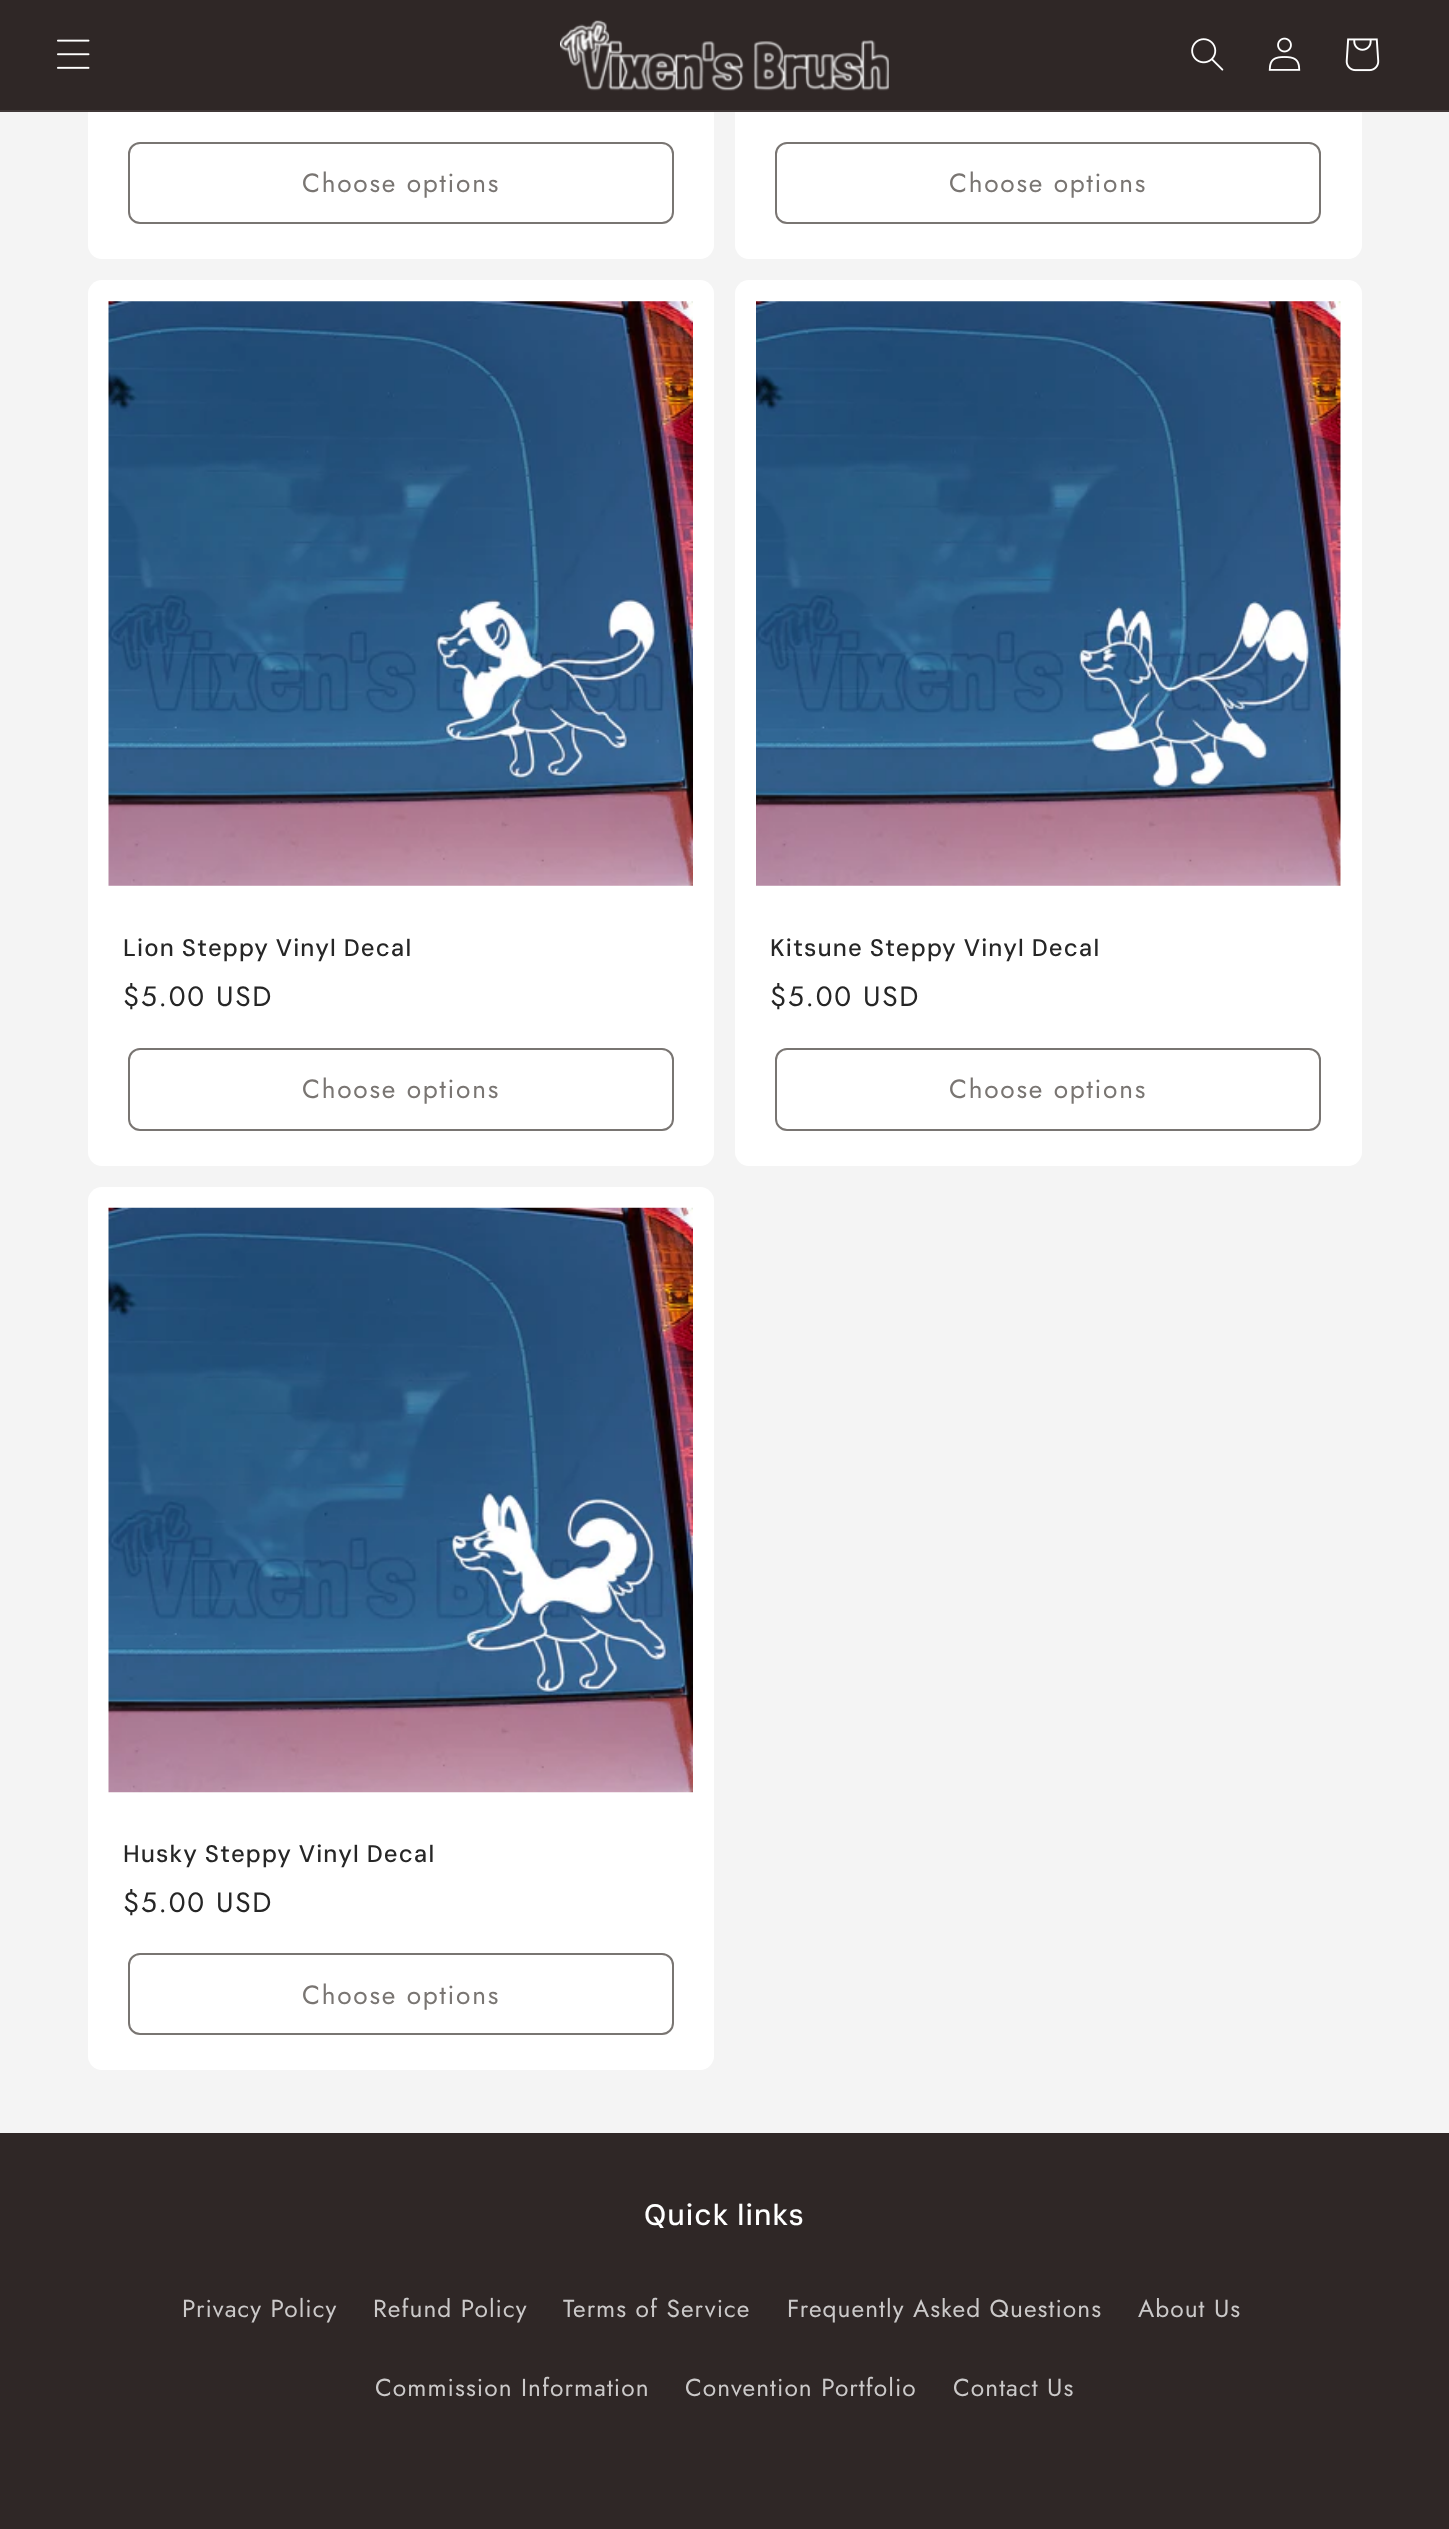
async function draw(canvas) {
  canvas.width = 1449
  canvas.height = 2529
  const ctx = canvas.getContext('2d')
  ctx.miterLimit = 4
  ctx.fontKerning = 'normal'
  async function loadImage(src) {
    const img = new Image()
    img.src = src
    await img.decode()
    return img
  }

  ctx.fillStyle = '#f4f4f4'
  ctx.fillRect(0, 0, 1449, 2529)
  ctx.fillStyle = '#fff'
  ctx.beginPath()
  ctx.roundRect(88, -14, 626, 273, 14)
  ctx.fill()
  ctx.beginPath()
  ctx.roundRect(735, -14, 627, 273, 14)
  ctx.fill()
  ctx.fillStyle = '#2f2726'
  ctx.fillRect(0, 0, 1449, 110)
  ctx.fillStyle = '#403837'
  ctx.fillRect(0, 110, 1449, 2)
  ctx.drawImage(await loadImage('image0.png'), 57, 39, 33, 30)
  ctx.drawImage(await loadImage('image1.png'), 560, 20, 329, 71)
  ctx.drawImage(await loadImage('image2.png'), 1191, 38, 33, 33)
  ctx.drawImage(await loadImage('image3.png'), 1268, 37, 33, 34)
  ctx.drawImage(await loadImage('image4.png'), 1345, 38, 35, 34)
  ctx.beginPath()
  ctx.roundRect(129, 143, 544, 80, 11)
  ctx.strokeStyle = '#797572'
  ctx.lineWidth = 2
  ctx.stroke()
  ctx.letterSpacing = '1.75px'
  ctx.font = '26.25px Jost'
  ctx.fillStyle = '#797572'
  ctx.fillText('Choose options', 302, 192)
  ctx.beginPath()
  ctx.roundRect(776, 143, 544, 80, 11)
  ctx.stroke()
  ctx.fillText('Choose options', 949, 192)
  ctx.fillStyle = '#fff'
  ctx.beginPath()
  ctx.roundRect(88, 280, 626, 886, 14)
  ctx.fill()
  ctx.drawImage(await loadImage('image5.png'), 108, 301, 585, 585)
  ctx.letterSpacing = '1.1px'
  ctx.wordSpacing = '-0.5px'
  ctx.font = '500 23.9px DM Sans'
  ctx.fillStyle = '#262626'
  ctx.fillText('Lion Steppy Vinyl Decal', 123, 956)
  ctx.letterSpacing = '1.75px'
  ctx.wordSpacing = '0px'
  ctx.font = '28px Jost'
  ctx.fillText('$5.00 USD', 123, 1006)
  ctx.beginPath()
  ctx.roundRect(129, 1049, 544, 81, 11)
  ctx.stroke()
  ctx.font = '26.25px Jost'
  ctx.fillStyle = '#797572'
  ctx.fillText('Choose options', 302, 1098)
  ctx.fillStyle = '#fff'
  ctx.beginPath()
  ctx.roundRect(735, 280, 627, 886, 14)
  ctx.fill()
  ctx.drawImage(await loadImage('image6.png'), 756, 301, 585, 585)
  ctx.letterSpacing = '1.1px'
  ctx.wordSpacing = '-0.5px'
  ctx.font = '500 23.9px DM Sans'
  ctx.fillStyle = '#262626'
  ctx.fillText('Kitsune Steppy Vinyl Decal', 770, 956)
  ctx.letterSpacing = '1.75px'
  ctx.wordSpacing = '0px'
  ctx.font = '28px Jost'
  ctx.fillText('$5.00 USD', 770, 1006)
  ctx.beginPath()
  ctx.roundRect(776, 1049, 544, 81, 11)
  ctx.stroke()
  ctx.font = '26.25px Jost'
  ctx.fillStyle = '#797572'
  ctx.fillText('Choose options', 949, 1098)
  ctx.fillStyle = '#fff'
  ctx.beginPath()
  ctx.roundRect(88, 1187, 626, 883, 14)
  ctx.fill()
  ctx.drawImage(await loadImage('image7.png'), 108, 1207, 585, 586)
  ctx.letterSpacing = '1.1px'
  ctx.wordSpacing = '-0.5px'
  ctx.font = '500 23.9px DM Sans'
  ctx.fillStyle = '#262626'
  ctx.fillText('Husky Steppy Vinyl Decal', 123, 1862)
  ctx.letterSpacing = '1.75px'
  ctx.wordSpacing = '0px'
  ctx.font = '28px Jost'
  ctx.fillText('$5.00 USD', 123, 1912)
  ctx.beginPath()
  ctx.roundRect(129, 1954, 544, 80, 11)
  ctx.stroke()
  ctx.font = '26.25px Jost'
  ctx.fillStyle = '#797572'
  ctx.fillText('Choose options', 302, 2004)
  ctx.fillStyle = '#2f2726'
  ctx.fillRect(0, 2133, 1449, 396)
  ctx.letterSpacing = '1.1px'
  ctx.wordSpacing = '-1px'
  ctx.font = '500 29.5px DM Sans'
  ctx.fillStyle = '#fff'
  ctx.fillText('Quick links', 644, 2225)
  ctx.letterSpacing = '1.05px'
  ctx.wordSpacing = '0px'
  ctx.font = '24.5px Jost'
  ctx.fillStyle = '#cbc9c9'
  ctx.fillText('Privacy Policy', 182, 2317)
  ctx.fillText('Refund Policy', 373, 2317)
  ctx.fillText('Terms of Service', 563, 2317)
  ctx.fillText('Frequently Asked Questions', 787, 2317)
  ctx.fillText('About Us', 1138, 2317)
  ctx.fillText('Commission Information', 375, 2396)
  ctx.fillText('Convention Portfolio', 685, 2396)
  ctx.fillText('Contact Us', 953, 2396)
}

draw(document.querySelector('canvas'))
